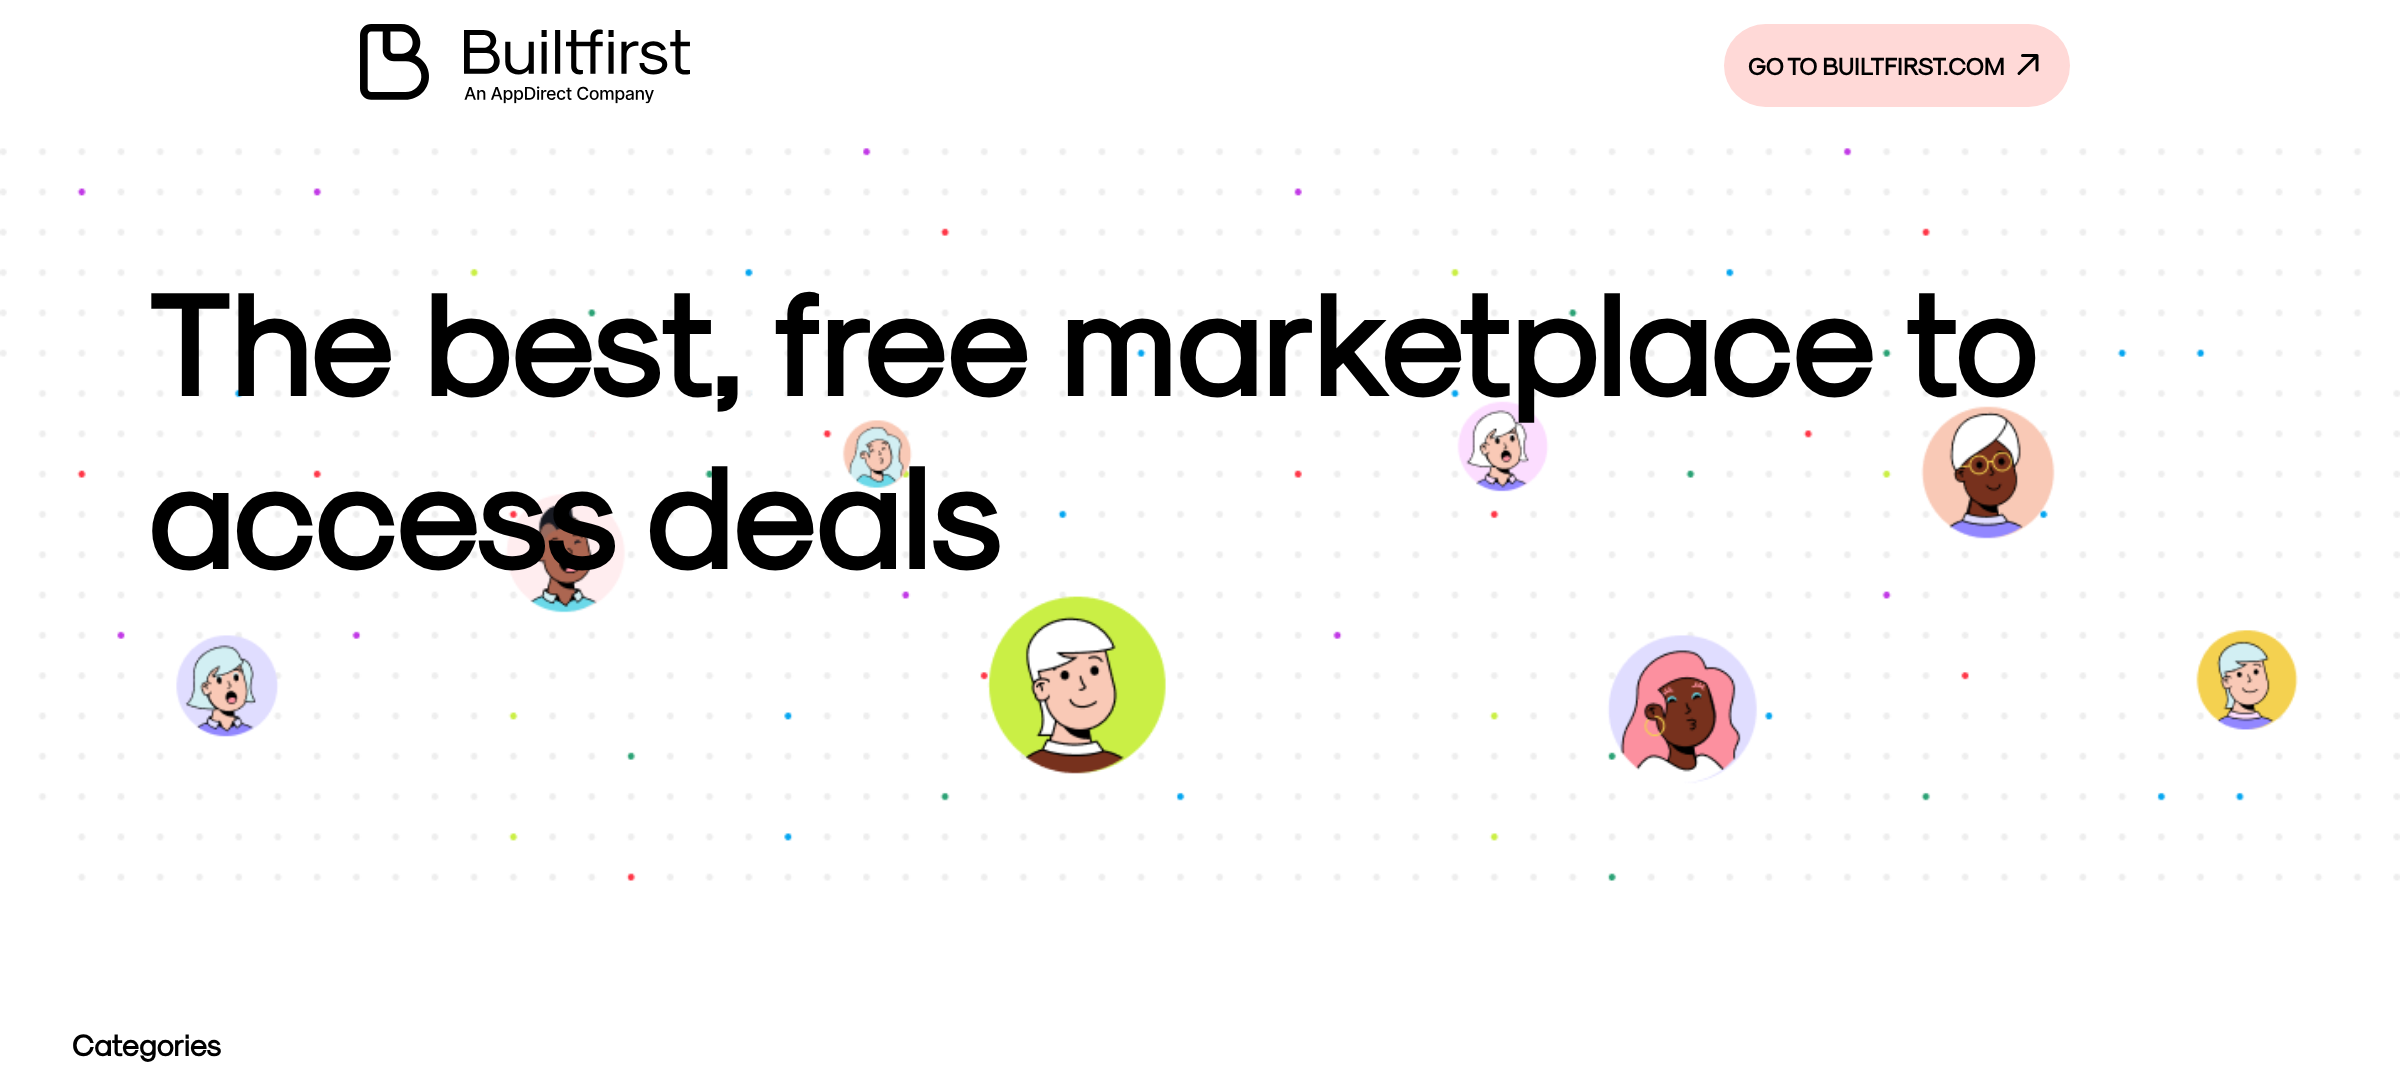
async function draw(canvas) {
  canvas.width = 2400
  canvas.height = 1065
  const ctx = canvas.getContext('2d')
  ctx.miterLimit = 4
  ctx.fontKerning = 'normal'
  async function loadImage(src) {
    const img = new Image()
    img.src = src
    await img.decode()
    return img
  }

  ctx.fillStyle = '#fff'
  ctx.fillRect(0, 0, 2400, 1065)
  ctx.drawImage(await loadImage('image0.png'), 360, 24, 330, 80)
  ctx.fillStyle = '#ffd9d7'
  ctx.beginPath()
  ctx.roundRect(1724, 24, 346, 83, 41.5)
  ctx.fill()
  ctx.font = 'bold 24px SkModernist'
  ctx.fillStyle = '#000'
  ctx.fillText('GO TO BUILTFIRST.COM', 1748, 75)
  ctx.beginPath()
  ctx.moveTo(2019, 73.5)
  ctx.lineTo(2037, 55.5)
  ctx.moveTo(2022.5, 55.5)
  ctx.lineTo(2037, 55.5)
  ctx.lineTo(2037, 70)
  ctx.strokeStyle = '#000'
  ctx.lineWidth = 3
  ctx.lineCap = 'round'
  ctx.lineJoin = 'round'
  ctx.stroke()
  ctx.drawImage(await loadImage('image1.png'), 0, 148, 2400, 733)
  ctx.wordSpacing = '-0.5px'
  ctx.font = 'bold 144px SkModernist'
  ctx.fillText('The best, free marketplace to', 147, 396)
  ctx.wordSpacing = '0px'
  ctx.fillText('access deals', 147, 569)
  ctx.font = 'bold 30px SkModernist'
  ctx.fillText('Categories', 72, 1056)
}

draw(document.querySelector('canvas'))
